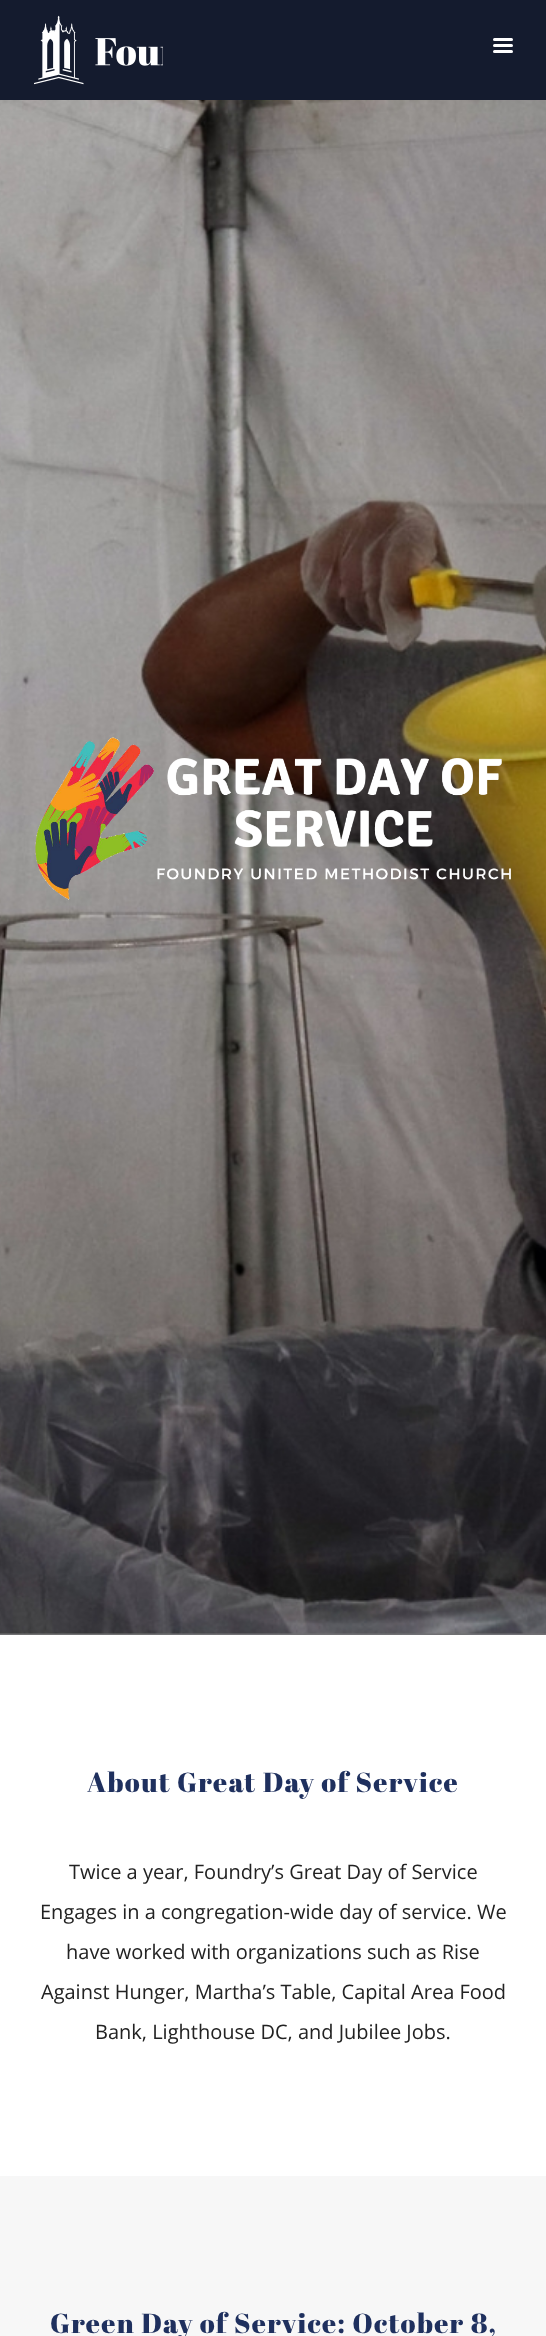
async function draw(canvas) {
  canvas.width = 546
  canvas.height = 2336
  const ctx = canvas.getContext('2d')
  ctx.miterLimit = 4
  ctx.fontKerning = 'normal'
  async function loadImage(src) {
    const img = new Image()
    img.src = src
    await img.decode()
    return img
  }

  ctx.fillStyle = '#fff'
  ctx.fillRect(0, 0, 546, 2336)
  ctx.fillStyle = '#141b2e'
  ctx.fillRect(0, 0, 546, 100)
  ctx.drawImage(await loadImage('image0.png'), 34, 15, 129, 70)
  ctx.fillStyle = '#fff'
  ctx.beginPath()
  ctx.roundRect(493, 44, 20, 3, 1.5)
  ctx.fill()
  ctx.beginPath()
  ctx.roundRect(493, 38, 20, 3, 1.5)
  ctx.fill()
  ctx.beginPath()
  ctx.roundRect(493, 50, 20, 3, 1.5)
  ctx.fill()
  ctx.drawImage(await loadImage('image1.png'), 0, 100, 546, 1535)
  ctx.drawImage(await loadImage('image2.png'), 35, 737, 476, 164)
  ctx.letterSpacing = '1.25px'
  ctx.font = '27.5px Abril Fatface'
  ctx.fillStyle = '#1f305e'
  ctx.fillText('About Great Day of Service', 87, 1792)
  ctx.letterSpacing = '0px'
  ctx.font = '20px Open Sans'
  ctx.fillStyle = '#222'
  ctx.fillText('Twice a year, Foundry’s Great Day of Service', 69, 1879)
  ctx.fillText('Engages in a congregation-wide day of service. We', 40, 1919)
  ctx.fillText('have worked with organizations such as Rise', 66, 1959)
  ctx.fillText('Against Hunger, Martha’s Table, Capital Area Food', 41, 1999)
  ctx.fillText('Bank, Lighthouse DC, and Jubilee Jobs.', 95, 2039)
  ctx.fillStyle = '#f7f7f7'
  ctx.fillRect(0, 2176, 546, 160)
  ctx.letterSpacing = '1.25px'
  ctx.font = '27.5px Abril Fatface'
  ctx.fillStyle = '#1f305e'
  ctx.fillText('Green Day of Service: October 8,', 50, 2333)
}

draw(document.querySelector('canvas'))
